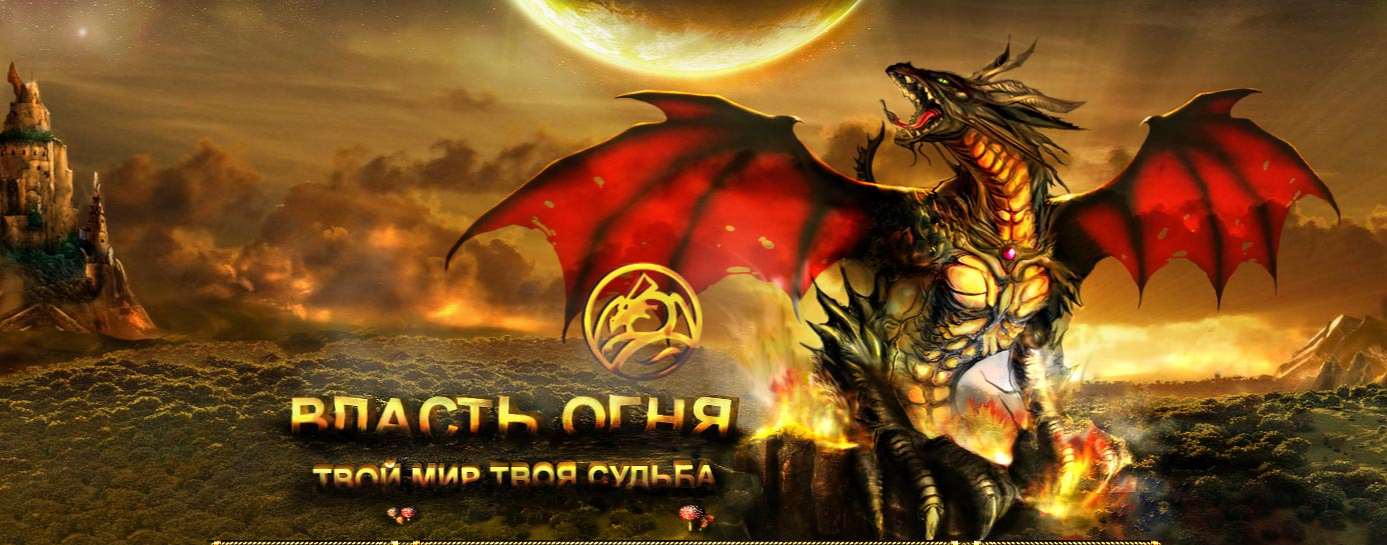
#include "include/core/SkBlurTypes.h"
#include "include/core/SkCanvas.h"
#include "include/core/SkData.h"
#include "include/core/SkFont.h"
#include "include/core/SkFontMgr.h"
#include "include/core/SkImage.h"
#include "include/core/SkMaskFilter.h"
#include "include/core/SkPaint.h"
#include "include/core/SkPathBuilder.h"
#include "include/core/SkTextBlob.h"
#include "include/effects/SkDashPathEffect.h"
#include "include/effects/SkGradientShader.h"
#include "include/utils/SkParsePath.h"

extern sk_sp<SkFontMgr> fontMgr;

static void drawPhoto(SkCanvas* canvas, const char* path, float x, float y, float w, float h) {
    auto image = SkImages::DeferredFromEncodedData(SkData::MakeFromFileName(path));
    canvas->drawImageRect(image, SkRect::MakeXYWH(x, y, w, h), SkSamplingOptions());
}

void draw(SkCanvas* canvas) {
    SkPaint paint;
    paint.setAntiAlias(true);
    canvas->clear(0xFFFFFFFF);
    drawPhoto(canvas, "assets/img1.png", 0, 0, 1387, 545);
    drawPhoto(canvas, "assets/img2.png", 206, 540, 200, 5);
    drawPhoto(canvas, "assets/img3.png", 406, 540, 560, 5);
    drawPhoto(canvas, "assets/img4.png", 966, 540, 200, 5);
}
